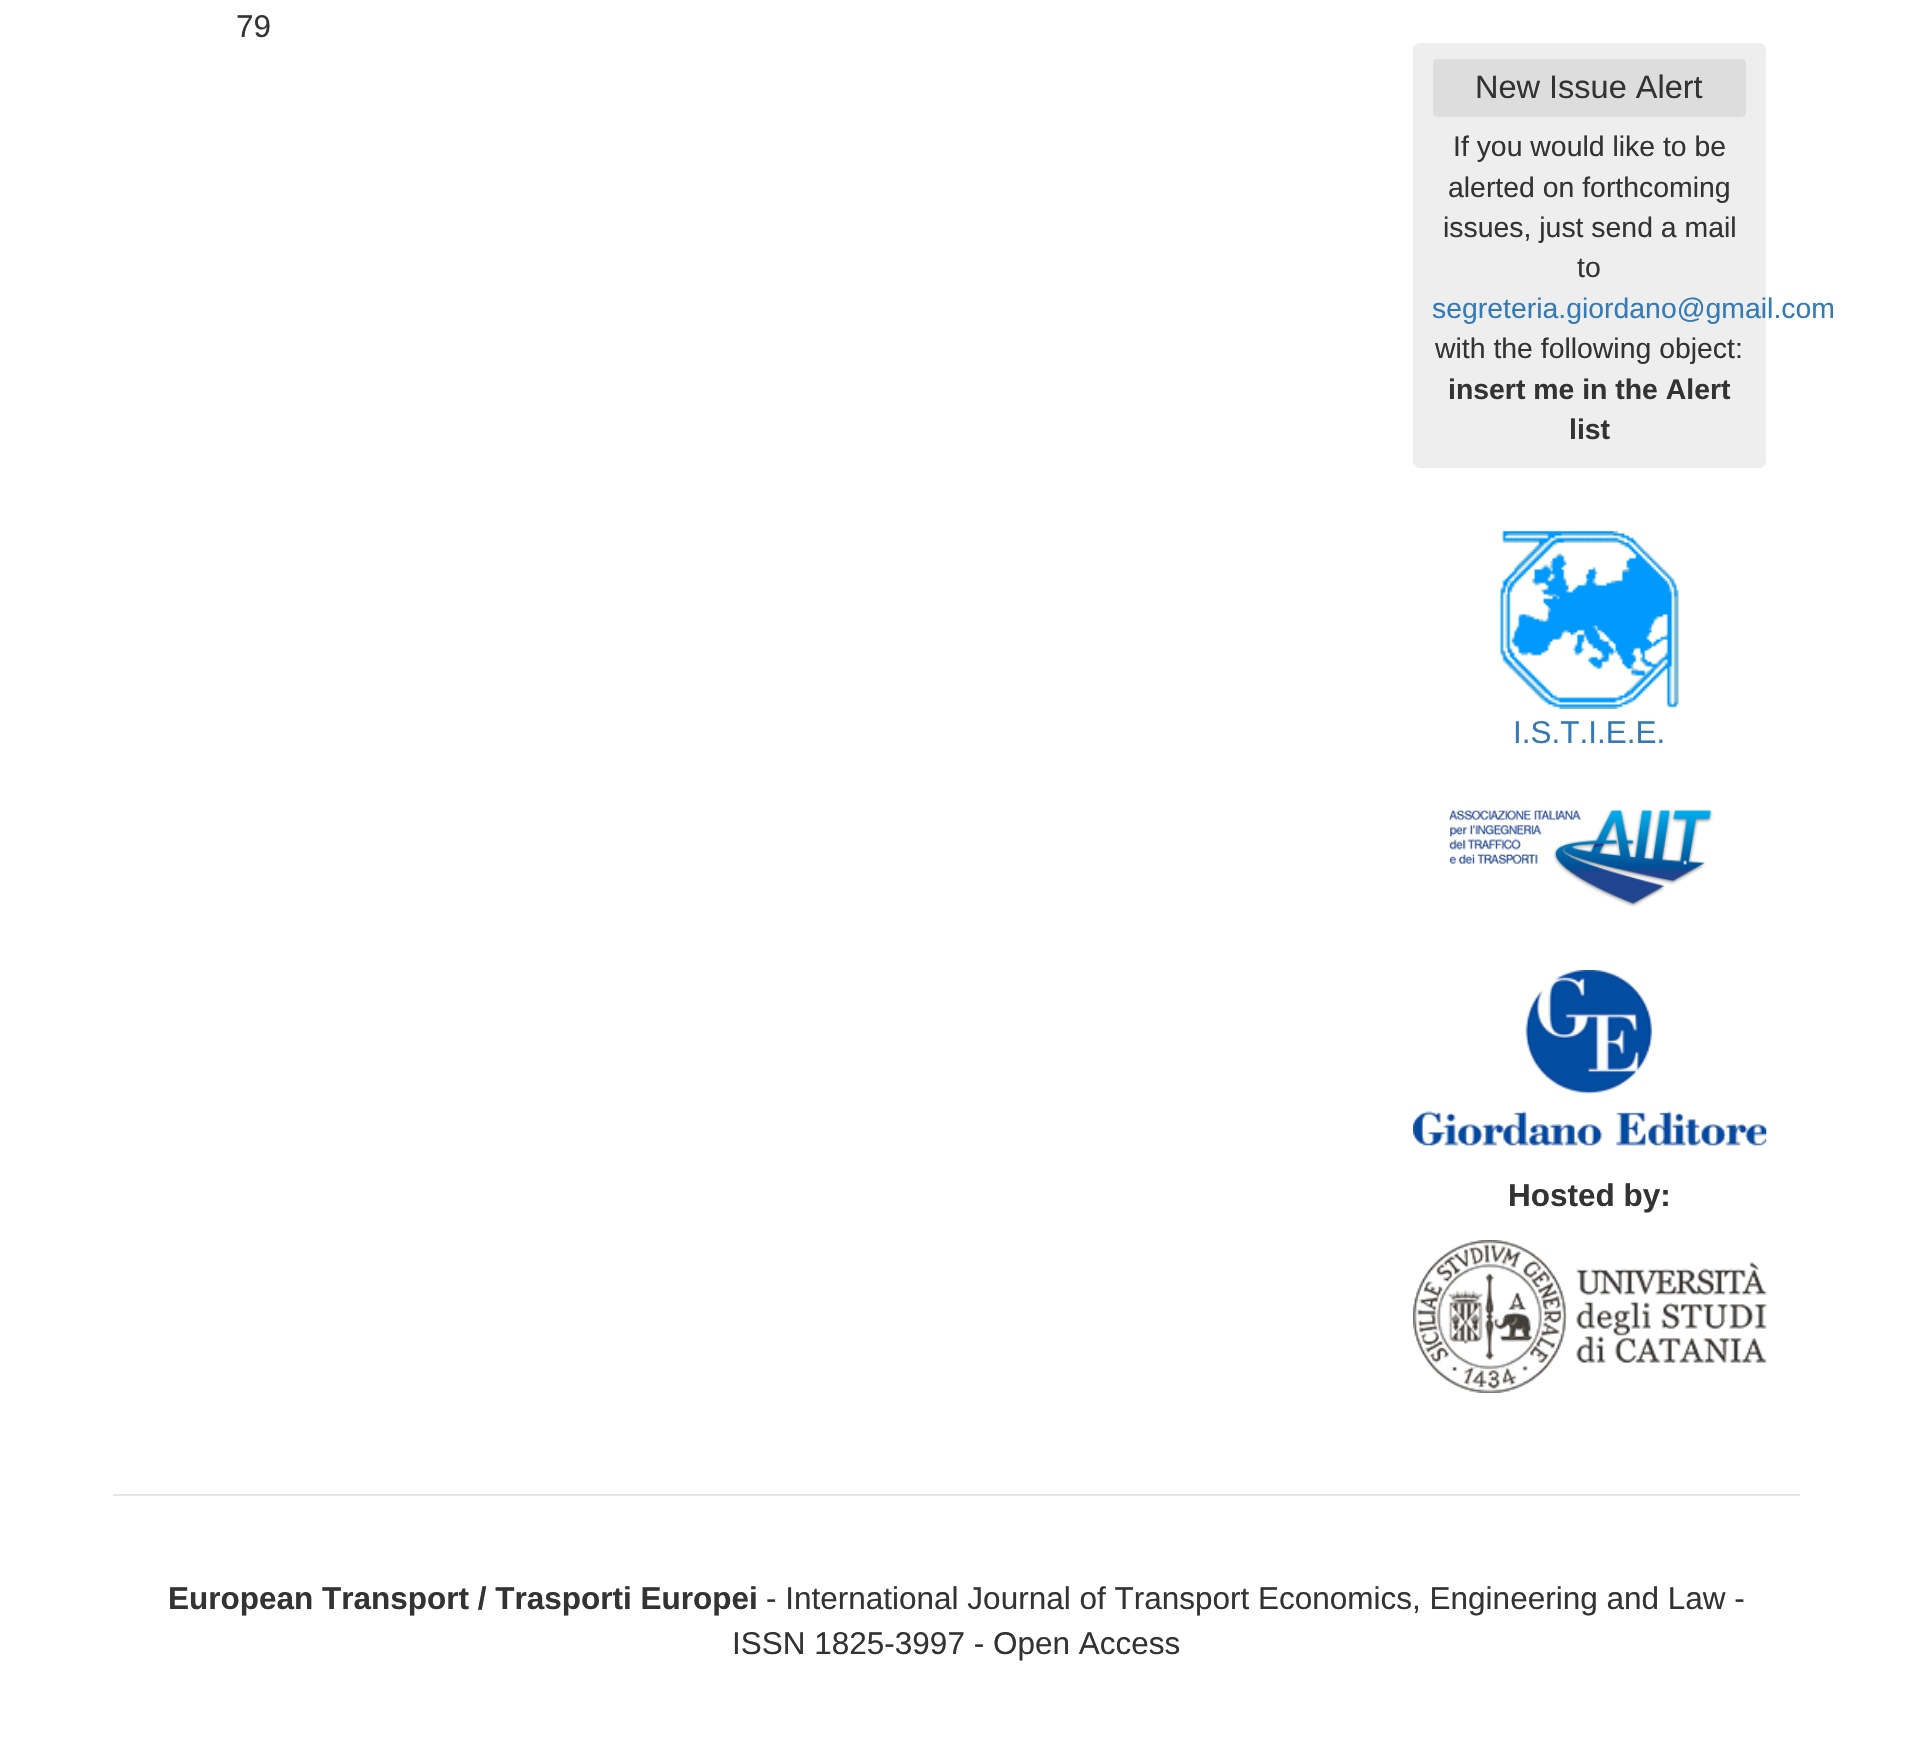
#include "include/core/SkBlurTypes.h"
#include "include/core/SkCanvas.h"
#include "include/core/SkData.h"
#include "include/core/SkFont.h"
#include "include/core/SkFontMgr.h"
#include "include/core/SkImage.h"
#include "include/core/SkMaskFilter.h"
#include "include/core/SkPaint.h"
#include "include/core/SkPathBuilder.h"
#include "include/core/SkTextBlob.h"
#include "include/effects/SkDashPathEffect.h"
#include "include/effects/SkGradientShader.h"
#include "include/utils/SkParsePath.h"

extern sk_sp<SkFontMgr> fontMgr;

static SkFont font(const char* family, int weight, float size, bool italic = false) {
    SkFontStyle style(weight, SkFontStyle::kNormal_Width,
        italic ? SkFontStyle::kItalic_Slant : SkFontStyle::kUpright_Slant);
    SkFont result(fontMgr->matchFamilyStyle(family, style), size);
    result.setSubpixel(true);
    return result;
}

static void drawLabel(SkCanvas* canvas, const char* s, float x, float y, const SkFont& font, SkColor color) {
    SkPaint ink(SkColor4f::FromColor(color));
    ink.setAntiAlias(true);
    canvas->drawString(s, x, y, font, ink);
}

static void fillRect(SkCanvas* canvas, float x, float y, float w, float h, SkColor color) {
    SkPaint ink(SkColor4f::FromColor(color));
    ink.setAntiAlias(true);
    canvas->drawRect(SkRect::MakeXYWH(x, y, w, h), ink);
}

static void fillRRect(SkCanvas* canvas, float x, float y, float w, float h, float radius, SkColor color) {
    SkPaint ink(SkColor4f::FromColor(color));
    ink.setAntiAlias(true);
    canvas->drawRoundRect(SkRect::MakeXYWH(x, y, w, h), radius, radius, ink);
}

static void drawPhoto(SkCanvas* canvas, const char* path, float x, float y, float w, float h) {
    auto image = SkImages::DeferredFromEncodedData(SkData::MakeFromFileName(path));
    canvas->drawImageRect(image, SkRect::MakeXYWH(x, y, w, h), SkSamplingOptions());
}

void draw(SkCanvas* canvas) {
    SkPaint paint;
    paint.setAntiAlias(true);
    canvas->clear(0xFFFFFFFF);
    SkFont font1 = font("Liberation Sans", 400, 31.5f);
    drawLabel(canvas, "79", 236, 37, font1, 0xFF333333);
    fillRRect(canvas, 1413, 43, 353, 425, 7, 0xFFEEEEEE);
    fillRRect(canvas, 1433, 59, 313, 58, 5, 0xFFDDDDDD);
    SkFont font2 = font("Liberation Sans", 400, 32.5f);
    drawLabel(canvas, "New Issue Alert", 1475, 98, font2, 0xFF333333);
    SkFont font3 = font("Liberation Sans", 400, 28.4f);
    drawLabel(canvas, "If you would like to be", 1453, 156, font3, 0xFF333333);
    drawLabel(canvas, "alerted on forthcoming", 1448, 197, font3, 0xFF333333);
    drawLabel(canvas, "issues, just send a mail", 1443, 237, font3, 0xFF333333);
    drawLabel(canvas, "to", 1577, 277, font3, 0xFF333333);
    drawLabel(canvas, "segreteria.giordano@gmail.com", 1432, 318, font3, 0xFF337AB7);
    drawLabel(canvas, "with the following object:", 1435, 358, font3, 0xFF333333);
    SkFont font4 = font("Liberation Sans", 700, 28.4f);
    drawLabel(canvas, "insert me in the Alert", 1448, 399, font4, 0xFF333333);
    drawLabel(canvas, "list", 1569, 439, font4, 0xFF333333);
    drawPhoto(canvas, "assets/img1.png", 1500, 531, 179, 178);
    drawLabel(canvas, "I.S.T.I.E.E.", 1513, 743, font1, 0xFF337AB7);
    drawPhoto(canvas, "assets/img2.png", 1449, 809, 264, 98);
    drawPhoto(canvas, "assets/img3.png", 1413, 970, 354, 176);
    SkFont font5 = font("Liberation Sans", 700, 31.5f);
    drawLabel(canvas, "Hosted by:", 1508, 1206, font5, 0xFF333333);
    drawPhoto(canvas, "assets/img4.png", 1413, 1240, 354, 153);
    fillRect(canvas, 113, 1494, 1687, 2, 0xFFE5E5E5);
    drawLabel(canvas, "European Transport / Trasporti Europei", 168, 1609, font5, 0xFF333333);
    drawLabel(canvas, "- International Journal of Transport Economics, Engineering and Law -", 766, 1609, font1, 0xFF333333);
    drawLabel(canvas, "ISSN 1825-3997 - Open Access", 732, 1654, font1, 0xFF333333);
}
